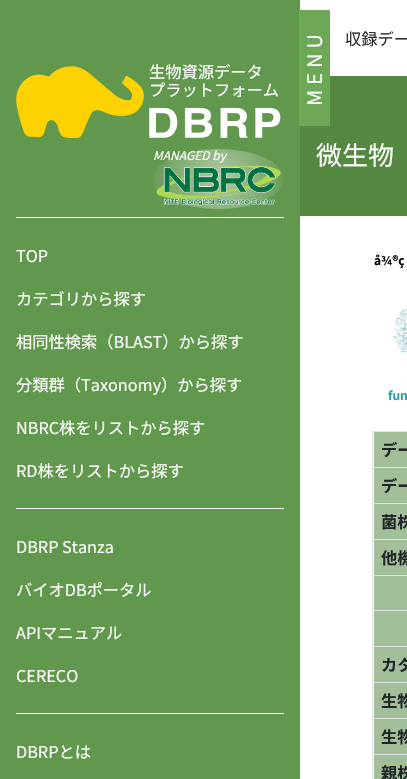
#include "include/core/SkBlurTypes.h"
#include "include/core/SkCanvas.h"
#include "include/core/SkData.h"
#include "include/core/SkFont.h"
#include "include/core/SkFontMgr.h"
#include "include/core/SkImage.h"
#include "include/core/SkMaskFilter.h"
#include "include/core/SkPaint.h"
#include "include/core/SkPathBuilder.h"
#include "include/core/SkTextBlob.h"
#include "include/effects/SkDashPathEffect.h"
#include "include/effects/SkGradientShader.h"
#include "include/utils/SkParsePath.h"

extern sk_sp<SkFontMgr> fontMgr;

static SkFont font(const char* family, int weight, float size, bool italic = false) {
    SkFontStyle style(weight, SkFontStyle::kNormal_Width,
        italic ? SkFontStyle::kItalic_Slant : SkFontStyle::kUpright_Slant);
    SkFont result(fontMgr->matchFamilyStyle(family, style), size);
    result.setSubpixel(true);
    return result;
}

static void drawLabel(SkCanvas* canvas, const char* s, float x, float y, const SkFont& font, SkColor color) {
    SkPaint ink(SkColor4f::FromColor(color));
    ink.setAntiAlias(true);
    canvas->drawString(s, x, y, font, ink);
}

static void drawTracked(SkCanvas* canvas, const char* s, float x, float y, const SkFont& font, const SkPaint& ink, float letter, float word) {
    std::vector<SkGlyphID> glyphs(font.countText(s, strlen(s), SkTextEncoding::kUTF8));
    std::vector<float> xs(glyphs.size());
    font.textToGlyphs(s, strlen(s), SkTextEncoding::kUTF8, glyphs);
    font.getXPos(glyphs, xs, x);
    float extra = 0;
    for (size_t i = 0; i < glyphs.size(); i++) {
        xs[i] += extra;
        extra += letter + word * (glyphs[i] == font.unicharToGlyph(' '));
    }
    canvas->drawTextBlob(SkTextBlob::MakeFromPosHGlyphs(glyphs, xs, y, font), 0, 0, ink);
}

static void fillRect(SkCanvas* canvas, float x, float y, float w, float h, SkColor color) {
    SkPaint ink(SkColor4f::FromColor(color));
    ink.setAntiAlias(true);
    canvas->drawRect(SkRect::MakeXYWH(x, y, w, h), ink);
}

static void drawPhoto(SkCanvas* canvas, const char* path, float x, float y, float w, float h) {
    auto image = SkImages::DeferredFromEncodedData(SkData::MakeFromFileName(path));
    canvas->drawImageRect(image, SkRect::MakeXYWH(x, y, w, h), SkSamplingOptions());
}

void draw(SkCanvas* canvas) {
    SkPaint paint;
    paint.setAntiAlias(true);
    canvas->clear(0xFF62974E);
    drawPhoto(canvas, "assets/img1.png", 16, 66, 265, 72);
    SkFont font1 = font("Noto Sans JP", 400, 16.25f);
    drawLabel(canvas, "生物資源データ", 149, 78, font1, 0xFFFFFFFF);
    drawLabel(canvas, "プラットフォーム", 149, 96, font1, 0xFFFFFFFF);
    {
        const SkColor colors[] = {0xFFB1CBA7, 0xFF62974E};
        const float stops[] = {0, 1};
        paint.setShader(SkGradientShader::MakeRadial({219, 179}, 72, colors, stops, 2, SkTileMode::kClamp));
        paint.setAlpha(255);
    }
    canvas->drawOval(SkRect::MakeXYWH(153, 149, 131, 60), paint);
    SkFont font2 = font("Noto Sans JP", 400, 12, true);
    drawLabel(canvas, "MANAGED by", 153, 160, font2, 0xFFFFFFFF);
    drawPhoto(canvas, "assets/img2.png", 156, 165, 125, 41);
    fillRect(canvas, 16, 217, 268, 1, 0xFFFFFFFF);
    drawLabel(canvas, "TOP", 16, 262, font1, 0xFFFFFFFF);
    drawLabel(canvas, "カテゴリから探す", 16, 305, font1, 0xFFFFFFFF);
    drawLabel(canvas, "相同性検索（BLAST）から探す", 16, 348, font1, 0xFFFFFFFF);
    drawLabel(canvas, "分類群（Taxonomy）から探す", 16, 391, font1, 0xFFFFFFFF);
    drawLabel(canvas, "NBRC株をリストから探す", 16, 434, font1, 0xFFFFFFFF);
    drawLabel(canvas, "RD株をリストから探す", 16, 477, font1, 0xFFFFFFFF);
    fillRect(canvas, 16, 508, 268, 1, 0xFFFFFFFF);
    drawLabel(canvas, "DBRP Stanza", 16, 553, font1, 0xFFFFFFFF);
    drawLabel(canvas, "バイオDBポータル", 16, 596, font1, 0xFFFFFFFF);
    drawLabel(canvas, "APIマニュアル", 16, 639, font1, 0xFFFFFFFF);
    drawLabel(canvas, "CERECO", 16, 682, font1, 0xFFFFFFFF);
    fillRect(canvas, 16, 713, 268, 1, 0xFFFFFFFF);
    drawLabel(canvas, "DBRPとは", 16, 758, font1, 0xFFFFFFFF);
    fillRect(canvas, 300, 0, 107, 779, 0xFFFFFFFF);
    fillRect(canvas, 300, 76, 107, 140, 0xFF558840);
    fillRect(canvas, 299, 10, 31, 116, 0xFF6DA857);
    SkFont font3 = font("Noto Sans JP", 400, 20);
    paint.setShader(nullptr);
    paint.setColor(0xFFFFFFFF);
    canvas->save();
    canvas->rotate(-90, 322, 106);
    drawTracked(canvas, "MENU", 322, 106, font3, paint, 5, 0);
    canvas->restore();
    drawLabel(canvas, "収録デー", 345, 45, font1, 0xFF2C2C2C);
    SkFont font4 = font("Noto Sans JP", 400, 26);
    drawLabel(canvas, "微生物", 316, 165, font4, 0xFFFFFFFF);
    SkFont font5 = font("Noto Sans JP", 700, 12);
    drawLabel(canvas, "å¾®ç", 374, 265, font5, 0xFF000000);
    drawPhoto(canvas, "assets/img3.png", 393, 307, 14, 49);
    SkFont font6 = font("Noto Sans JP", 400, 13);
    drawLabel(canvas, "-", 403, 354, font6, 0xFFFFFFFF);
    drawLabel(canvas, "fun", 388, 400, font5, 0xFF249EB3);
    fillRect(canvas, 372, 431, 35, 1, 0xFFDEE2E6);
    fillRect(canvas, 374, 432, 33, 35, 0xFFA3BF99);
    SkFont font7 = font("Noto Sans JP", 700, 16.25f);
    drawLabel(canvas, "デー", 381, 456, font7, 0xFF212529);
    fillRect(canvas, 372, 467, 35, 1, 0xFFDEE2E6);
    fillRect(canvas, 374, 468, 33, 35, 0xFFA3BF99);
    drawLabel(canvas, "デー", 381, 492, font7, 0xFF212529);
    fillRect(canvas, 372, 503, 35, 1, 0xFFDEE2E6);
    fillRect(canvas, 374, 504, 33, 35, 0xFFA3BF99);
    drawLabel(canvas, "菌株", 381, 528, font7, 0xFF212529);
    fillRect(canvas, 372, 539, 35, 1, 0xFFDEE2E6);
    fillRect(canvas, 374, 540, 33, 106, 0xFFA3BF99);
    drawLabel(canvas, "他機", 381, 564, font7, 0xFF212529);
    fillRect(canvas, 372, 575, 35, 1, 0xFFDEE2E6);
    fillRect(canvas, 372, 610, 35, 1, 0xFFDEE2E6);
    fillRect(canvas, 372, 646, 35, 1, 0xFFDEE2E6);
    fillRect(canvas, 374, 647, 33, 35, 0xFFA3BF99);
    drawLabel(canvas, "カタ", 381, 671, font7, 0xFF212529);
    fillRect(canvas, 372, 682, 35, 1, 0xFFDEE2E6);
    fillRect(canvas, 374, 683, 33, 35, 0xFFA3BF99);
    drawLabel(canvas, "生物", 381, 707, font7, 0xFF212529);
    fillRect(canvas, 372, 718, 35, 1, 0xFFDEE2E6);
    fillRect(canvas, 374, 719, 33, 35, 0xFFA3BF99);
    drawLabel(canvas, "生物", 381, 743, font7, 0xFF212529);
    fillRect(canvas, 372, 754, 35, 1, 0xFFDEE2E6);
    fillRect(canvas, 374, 755, 33, 24, 0xFFA3BF99);
    fillRect(canvas, 372, 431, 1, 348, 0xFFDEE2E6);
    drawLabel(canvas, "親株", 381, 779, font7, 0xFF212529);
}
